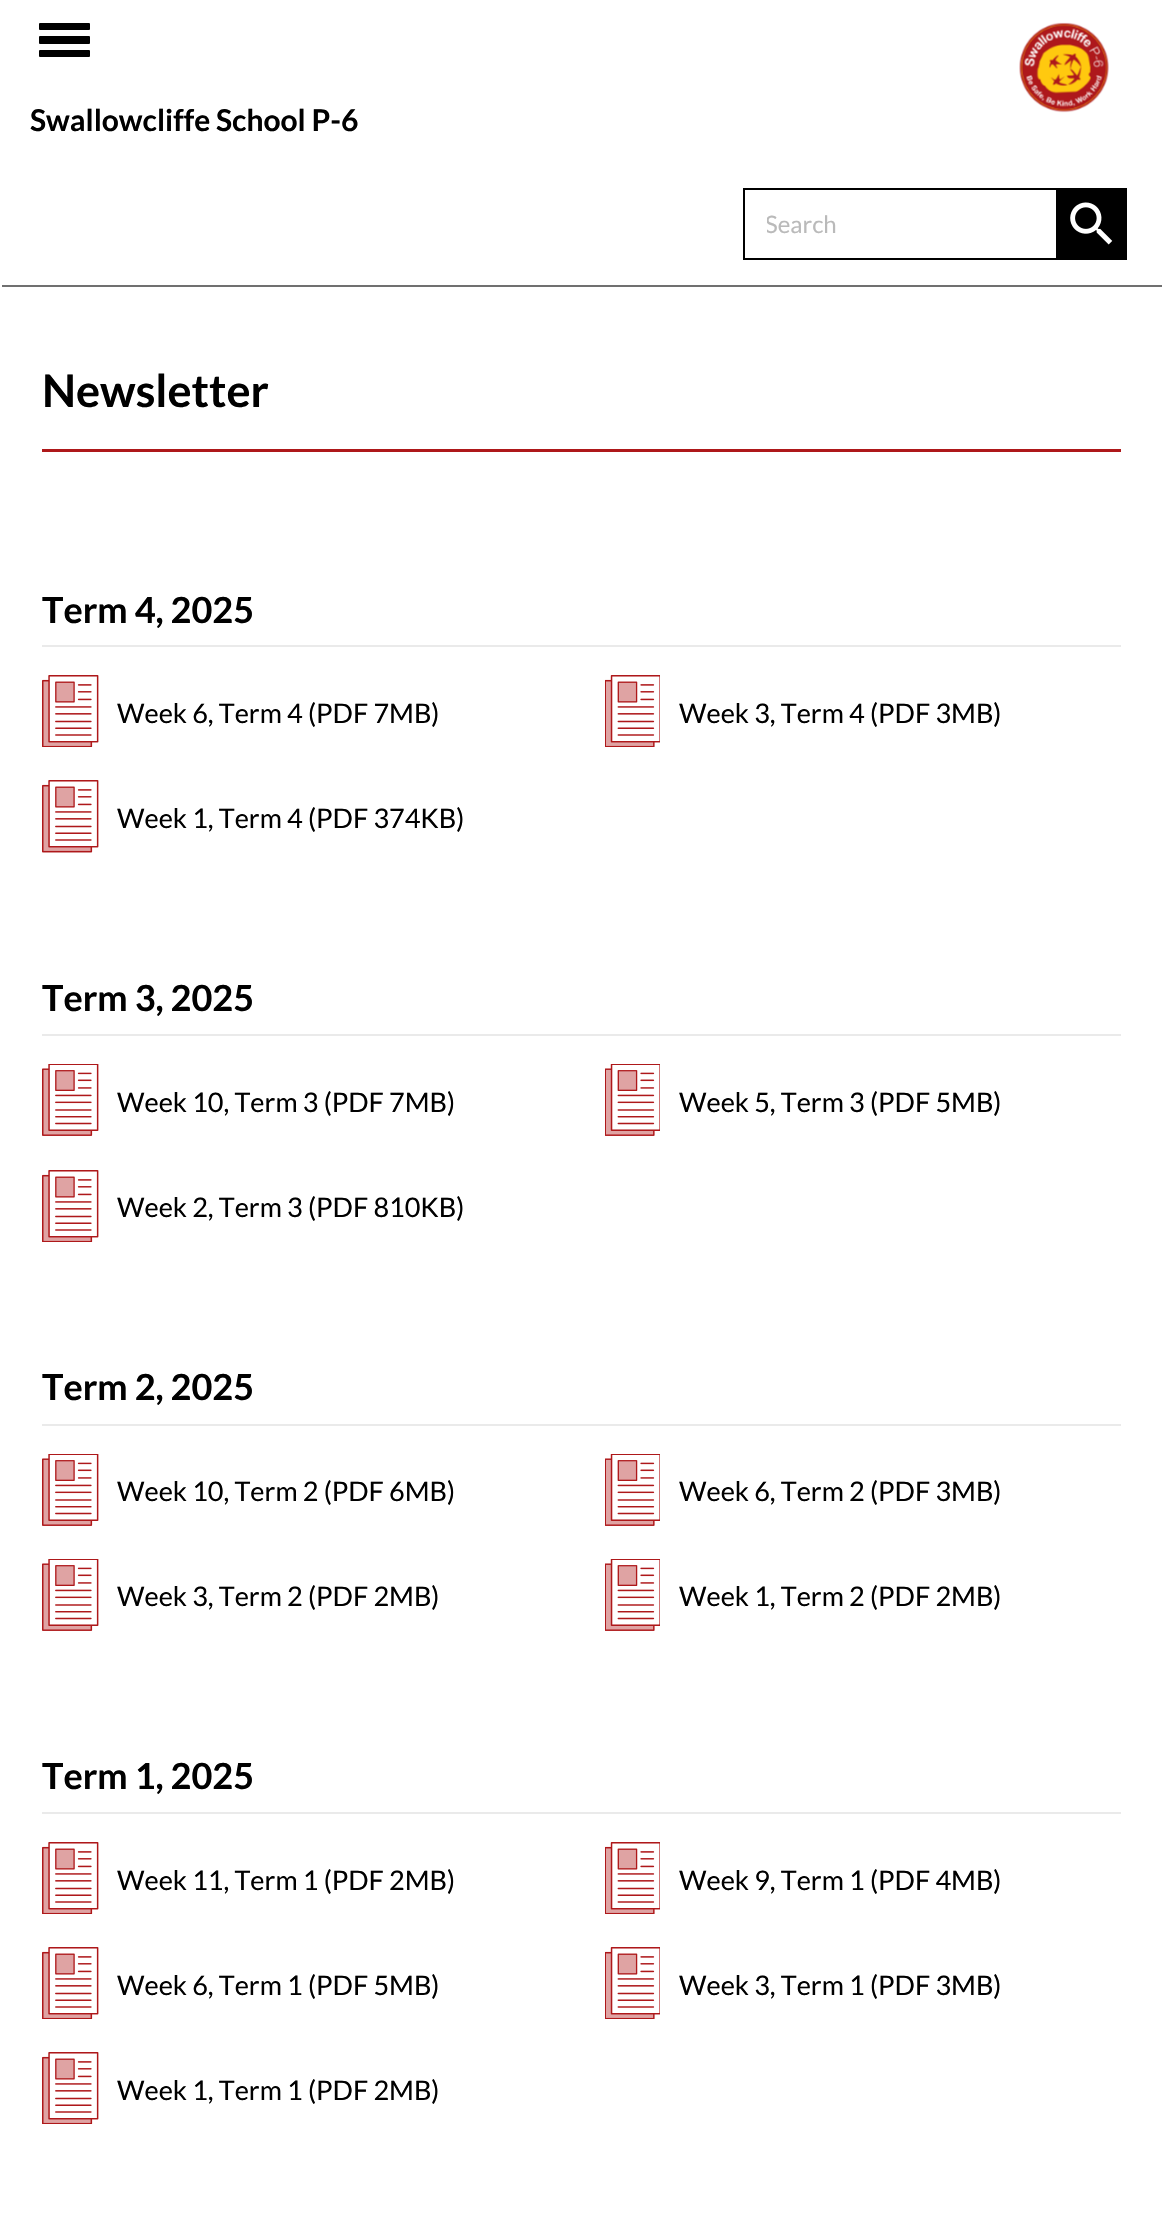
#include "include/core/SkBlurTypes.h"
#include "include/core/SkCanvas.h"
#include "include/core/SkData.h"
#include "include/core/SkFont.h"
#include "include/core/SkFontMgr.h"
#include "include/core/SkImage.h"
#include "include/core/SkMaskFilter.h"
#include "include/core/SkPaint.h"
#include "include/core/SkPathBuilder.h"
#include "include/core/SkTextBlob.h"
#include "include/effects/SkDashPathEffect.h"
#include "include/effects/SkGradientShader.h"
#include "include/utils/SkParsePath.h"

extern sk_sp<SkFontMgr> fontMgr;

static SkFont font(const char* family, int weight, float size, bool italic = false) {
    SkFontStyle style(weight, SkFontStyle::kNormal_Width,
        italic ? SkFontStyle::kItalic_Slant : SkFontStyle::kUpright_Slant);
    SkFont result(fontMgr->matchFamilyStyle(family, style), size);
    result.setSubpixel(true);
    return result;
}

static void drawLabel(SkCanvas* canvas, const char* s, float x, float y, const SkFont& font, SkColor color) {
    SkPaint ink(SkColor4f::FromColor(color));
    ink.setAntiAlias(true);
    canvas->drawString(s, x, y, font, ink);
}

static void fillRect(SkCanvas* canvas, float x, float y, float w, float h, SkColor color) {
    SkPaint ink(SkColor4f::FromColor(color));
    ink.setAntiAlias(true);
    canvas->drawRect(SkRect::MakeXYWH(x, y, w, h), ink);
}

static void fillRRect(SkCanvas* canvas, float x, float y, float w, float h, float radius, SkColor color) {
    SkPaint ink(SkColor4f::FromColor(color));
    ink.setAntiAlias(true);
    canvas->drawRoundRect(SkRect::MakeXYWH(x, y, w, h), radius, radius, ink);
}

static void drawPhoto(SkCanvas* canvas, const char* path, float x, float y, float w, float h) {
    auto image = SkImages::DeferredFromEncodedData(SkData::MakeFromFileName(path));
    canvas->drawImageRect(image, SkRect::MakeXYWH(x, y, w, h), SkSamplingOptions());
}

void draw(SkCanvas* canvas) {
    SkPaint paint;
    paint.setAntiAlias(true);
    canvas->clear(0xFFFFFFFF);
    fillRect(canvas, 2, 285, 1160, 2, 0xFF707070);
    fillRRect(canvas, 39, 23, 51, 7, 1, 0xFF000000);
    fillRRect(canvas, 39, 36, 51, 8, 1, 0xFF000000);
    fillRRect(canvas, 39, 50, 51, 7, 1, 0xFF000000);
    drawPhoto(canvas, "assets/img1.png", 1019, 22, 90, 91);
    SkFont font1 = font("Lato", 700, 30);
    drawLabel(canvas, "Swallowcliffe School P-6", 30, 131, font1, 0xFF000000);
    paint.setStroke(true);
    paint.setStrokeWidth(2);
    paint.setColor(0xFF000000);
    canvas->drawRect(SkRect::MakeXYWH(744, 189, 313, 70), paint);
    canvas->save();
    canvas->clipRect(SkRect::MakeXYWH(767, 209, 267, 28));
    SkFont font2 = font("Lato", 400, 24);
    drawLabel(canvas, "Search", 765, 233, font2, 0xFFBABABA);
    canvas->restore();
    fillRect(canvas, 1058, 188, 69, 72, 0xFF000000);
    drawPhoto(canvas, "assets/img2.png", 1070, 202, 43, 43);
    fillRect(canvas, 42, 449, 1079, 3, 0xFFAE181A);
    SkFont font3 = font("Lato", 700, 45);
    drawLabel(canvas, "Newsletter", 42, 407, font3, 0xFF000000);
    fillRect(canvas, 42, 645, 1079, 2, 0xFFEAEAEA);
    SkFont font4 = font("Lato", 700, 36);
    drawLabel(canvas, "Term 4, 2025", 42, 623, font4, 0xFF000000);
    drawPhoto(canvas, "assets/img3.png", 42, 675, 57, 72);
    SkFont font5 = font("Lato", 400, 27);
    drawLabel(canvas, "Week 6, Term 4 (PDF 7MB)", 117, 723, font5, 0xFF000000);
    drawPhoto(canvas, "assets/img4.png", 605, 675, 55, 72);
    drawLabel(canvas, "Week 3, Term 4 (PDF 3MB)", 679, 723, font5, 0xFF000000);
    drawPhoto(canvas, "assets/img5.png", 42, 780, 57, 73);
    drawLabel(canvas, "Week 1, Term 4 (PDF 374KB)", 117, 828, font5, 0xFF000000);
    fillRect(canvas, 42, 1034, 1079, 2, 0xFFEAEAEA);
    drawLabel(canvas, "Term 3, 2025", 42, 1011, font4, 0xFF000000);
    drawPhoto(canvas, "assets/img6.png", 42, 1064, 57, 72);
    drawLabel(canvas, "Week 10, Term 3 (PDF 7MB)", 117, 1112, font5, 0xFF000000);
    drawPhoto(canvas, "assets/img7.png", 605, 1064, 55, 72);
    drawLabel(canvas, "Week 5, Term 3 (PDF 5MB)", 679, 1112, font5, 0xFF000000);
    drawPhoto(canvas, "assets/img3.png", 42, 1170, 57, 72);
    drawLabel(canvas, "Week 2, Term 3 (PDF 810KB)", 117, 1217, font5, 0xFF000000);
    fillRect(canvas, 42, 1424, 1079, 2, 0xFFEAEAEA);
    drawLabel(canvas, "Term 2, 2025", 42, 1400, font4, 0xFF000000);
    drawPhoto(canvas, "assets/img6.png", 42, 1454, 57, 72);
    drawLabel(canvas, "Week 10, Term 2 (PDF 6MB)", 117, 1501, font5, 0xFF000000);
    drawPhoto(canvas, "assets/img7.png", 605, 1454, 55, 72);
    drawLabel(canvas, "Week 6, Term 2 (PDF 3MB)", 679, 1501, font5, 0xFF000000);
    drawPhoto(canvas, "assets/img6.png", 42, 1559, 57, 72);
    drawLabel(canvas, "Week 3, Term 2 (PDF 2MB)", 117, 1606, font5, 0xFF000000);
    drawPhoto(canvas, "assets/img7.png", 605, 1559, 55, 72);
    drawLabel(canvas, "Week 1, Term 2 (PDF 2MB)", 679, 1606, font5, 0xFF000000);
    fillRect(canvas, 42, 1812, 1079, 2, 0xFFEAEAEA);
    drawLabel(canvas, "Term 1, 2025", 42, 1789, font4, 0xFF000000);
    drawPhoto(canvas, "assets/img3.png", 42, 1842, 57, 72);
    drawLabel(canvas, "Week 11, Term 1 (PDF 2MB)", 117, 1890, font5, 0xFF000000);
    drawPhoto(canvas, "assets/img4.png", 605, 1842, 55, 72);
    drawLabel(canvas, "Week 9, Term 1 (PDF 4MB)", 679, 1890, font5, 0xFF000000);
    drawPhoto(canvas, "assets/img3.png", 42, 1947, 57, 72);
    drawLabel(canvas, "Week 6, Term 1 (PDF 5MB)", 117, 1995, font5, 0xFF000000);
    drawPhoto(canvas, "assets/img4.png", 605, 1947, 55, 72);
    drawLabel(canvas, "Week 3, Term 1 (PDF 3MB)", 679, 1995, font5, 0xFF000000);
    drawPhoto(canvas, "assets/img3.png", 42, 2052, 57, 72);
    drawLabel(canvas, "Week 1, Term 1 (PDF 2MB)", 117, 2100, font5, 0xFF000000);
}
